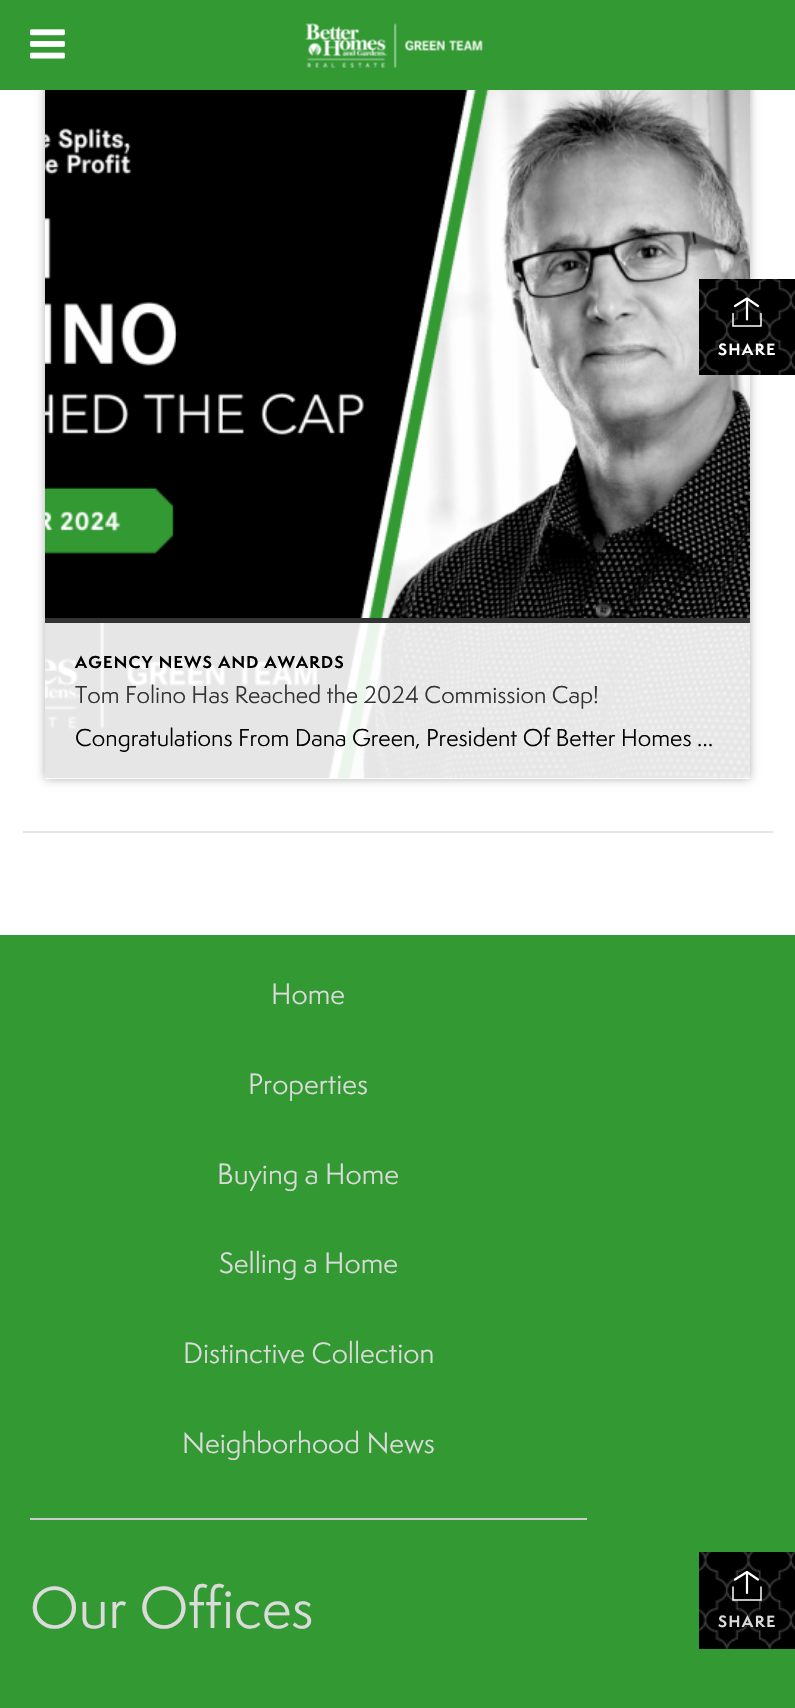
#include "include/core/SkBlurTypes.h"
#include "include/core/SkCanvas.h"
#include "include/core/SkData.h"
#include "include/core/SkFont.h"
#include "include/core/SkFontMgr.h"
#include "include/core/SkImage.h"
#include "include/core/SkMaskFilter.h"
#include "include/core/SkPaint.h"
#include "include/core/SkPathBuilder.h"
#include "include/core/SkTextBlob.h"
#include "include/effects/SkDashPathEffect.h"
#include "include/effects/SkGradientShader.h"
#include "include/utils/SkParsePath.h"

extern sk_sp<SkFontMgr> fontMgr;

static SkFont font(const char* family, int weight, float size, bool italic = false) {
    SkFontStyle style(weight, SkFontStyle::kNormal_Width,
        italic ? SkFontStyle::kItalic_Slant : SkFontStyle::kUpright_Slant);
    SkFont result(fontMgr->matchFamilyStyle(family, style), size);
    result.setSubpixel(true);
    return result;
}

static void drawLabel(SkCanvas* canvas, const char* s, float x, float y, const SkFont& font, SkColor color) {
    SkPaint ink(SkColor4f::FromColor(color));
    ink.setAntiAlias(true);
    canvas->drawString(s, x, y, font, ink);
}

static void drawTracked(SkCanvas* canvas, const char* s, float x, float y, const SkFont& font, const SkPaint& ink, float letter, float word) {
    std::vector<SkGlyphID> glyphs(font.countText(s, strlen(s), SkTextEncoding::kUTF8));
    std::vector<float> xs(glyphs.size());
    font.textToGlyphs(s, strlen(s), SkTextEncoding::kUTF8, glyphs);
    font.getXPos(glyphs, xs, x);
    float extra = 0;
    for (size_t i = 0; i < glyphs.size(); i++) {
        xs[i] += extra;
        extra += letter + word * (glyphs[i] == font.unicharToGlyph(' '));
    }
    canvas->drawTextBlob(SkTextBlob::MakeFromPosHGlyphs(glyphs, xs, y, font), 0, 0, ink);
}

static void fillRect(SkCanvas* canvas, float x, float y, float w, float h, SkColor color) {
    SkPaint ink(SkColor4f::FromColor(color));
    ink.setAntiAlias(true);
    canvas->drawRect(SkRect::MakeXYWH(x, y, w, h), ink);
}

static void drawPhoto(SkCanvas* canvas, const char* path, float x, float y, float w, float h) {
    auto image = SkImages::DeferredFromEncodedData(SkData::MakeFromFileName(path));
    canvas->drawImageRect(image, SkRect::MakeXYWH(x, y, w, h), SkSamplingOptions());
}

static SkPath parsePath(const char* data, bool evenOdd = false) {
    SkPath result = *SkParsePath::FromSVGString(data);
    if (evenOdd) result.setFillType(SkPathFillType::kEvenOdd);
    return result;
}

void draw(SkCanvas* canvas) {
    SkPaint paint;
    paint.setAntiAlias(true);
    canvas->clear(0xFFFFFFFF);
    paint.setColor(0x4D000000);
    paint.setMaskFilter(SkMaskFilter::MakeBlur(kNormal_SkBlurStyle, 4.5f));
    canvas->drawRect(SkRect::MakeXYWH(45, 74, 705, 705), paint);
    paint.setMaskFilter(nullptr);
    fillRect(canvas, 0, 0, 795, 90, 0xFF339933);
    drawPhoto(canvas, "assets/img1.png", 30, 29, 35, 30);
    drawPhoto(canvas, "assets/img2.png", 305, 23, 178, 45);
    drawPhoto(canvas, "assets/img4.png", 45, 90, 705, 688);
    drawPhoto(canvas, "assets/img3.png", 699, 279, 96, 96);
    paint.setStroke(true);
    paint.setStrokeWidth(1.5f);
    paint.setStrokeCap(SkPaint::kRound_Cap);
    paint.setColor(0xFFFFFFFF);
    canvas->drawPath(parsePath("M733 313.5V326H761V313.5"), paint);
    paint.setStrokeWidth(2.2f);
    canvas->drawPath(parsePath("M747 319.5V299"), paint);
    paint.setStrokeJoin(SkPaint::kRound_Join);
    canvas->drawPath(parsePath("M735 306L747 298.5L758 306"), paint);
    SkFont font1 = font("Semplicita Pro", 700, 15);
    paint.setStroke(false);
    drawTracked(canvas, "SHARE", 718, 355, font1, paint, 1.5f, 0);
    fillRect(canvas, 23, 831, 750, 2, 0xFFE4E4E4);
    fillRect(canvas, 45, 623, 705, 156, 0xE6FFFFFF);
    fillRect(canvas, 45, 618, 705, 5, 0xFF333333);
    SkFont font2 = font("Semplicita Pro", 700, 15.75f);
    paint.setColor(0xFF000000);
    drawTracked(canvas, "AGENCY NEWS AND AWARDS", 75, 668, font2, paint, 1.25f, 0);
    SkFont font3 = font("Semplicita Pro", 400, 22.5f);
    drawLabel(canvas, "Tom Folino Has Reached the 2024 Commission Cap!", 75, 703, font3, 0xFF333333);
    drawLabel(canvas, "Congratulations From Dana Green, President Of Better Homes …", 75, 746, font3, 0xFF000000);
    fillRect(canvas, 0, 935, 795, 773, 0xFF339933);
    SkFont font4 = font("Semplicita Pro", 400, 27);
    drawLabel(canvas, "Home", 271, 1004, font4, 0xFFDBDBDB);
    drawLabel(canvas, "Properties", 248, 1094, font4, 0xFFDBDBDB);
    drawLabel(canvas, "Buying a Home", 217, 1184, font4, 0xFFDBDBDB);
    drawLabel(canvas, "Selling a Home", 219, 1273, font4, 0xFFDBDBDB);
    drawLabel(canvas, "Distinctive Collection", 183, 1363, font4, 0xFFDBDBDB);
    drawLabel(canvas, "Neighborhood News", 182, 1453, font4, 0xFFDBDBDB);
    fillRect(canvas, 30, 1518, 557, 2, 0xFFCCCCCC);
    SkFont font5 = font("Semplicita Pro", 400, 54);
    drawLabel(canvas, "Our Offices", 30, 1628, font5, 0xFFDBDBDB);
    drawPhoto(canvas, "assets/img5.png", 699, 1552, 96, 97);
    paint.setStroke(true);
    paint.setStrokeWidth(1.5f);
    paint.setStrokeJoin(SkPaint::kMiter_Join);
    paint.setColor(0xFFFFFFFF);
    canvas->drawPath(parsePath("M733 1587V1600H761V1587"), paint);
    paint.setStrokeWidth(2.2f);
    canvas->drawPath(parsePath("M747 1593V1573"), paint);
    paint.setStrokeJoin(SkPaint::kRound_Join);
    canvas->drawPath(parsePath("M735 1579.5L747 1572L758 1579.5"), paint);
    paint.setStroke(false);
    paint.setColor(0xFFDBDBDB);
    drawTracked(canvas, "SHARE", 718, 1627, font1, paint, 1.5f, 0);
}
